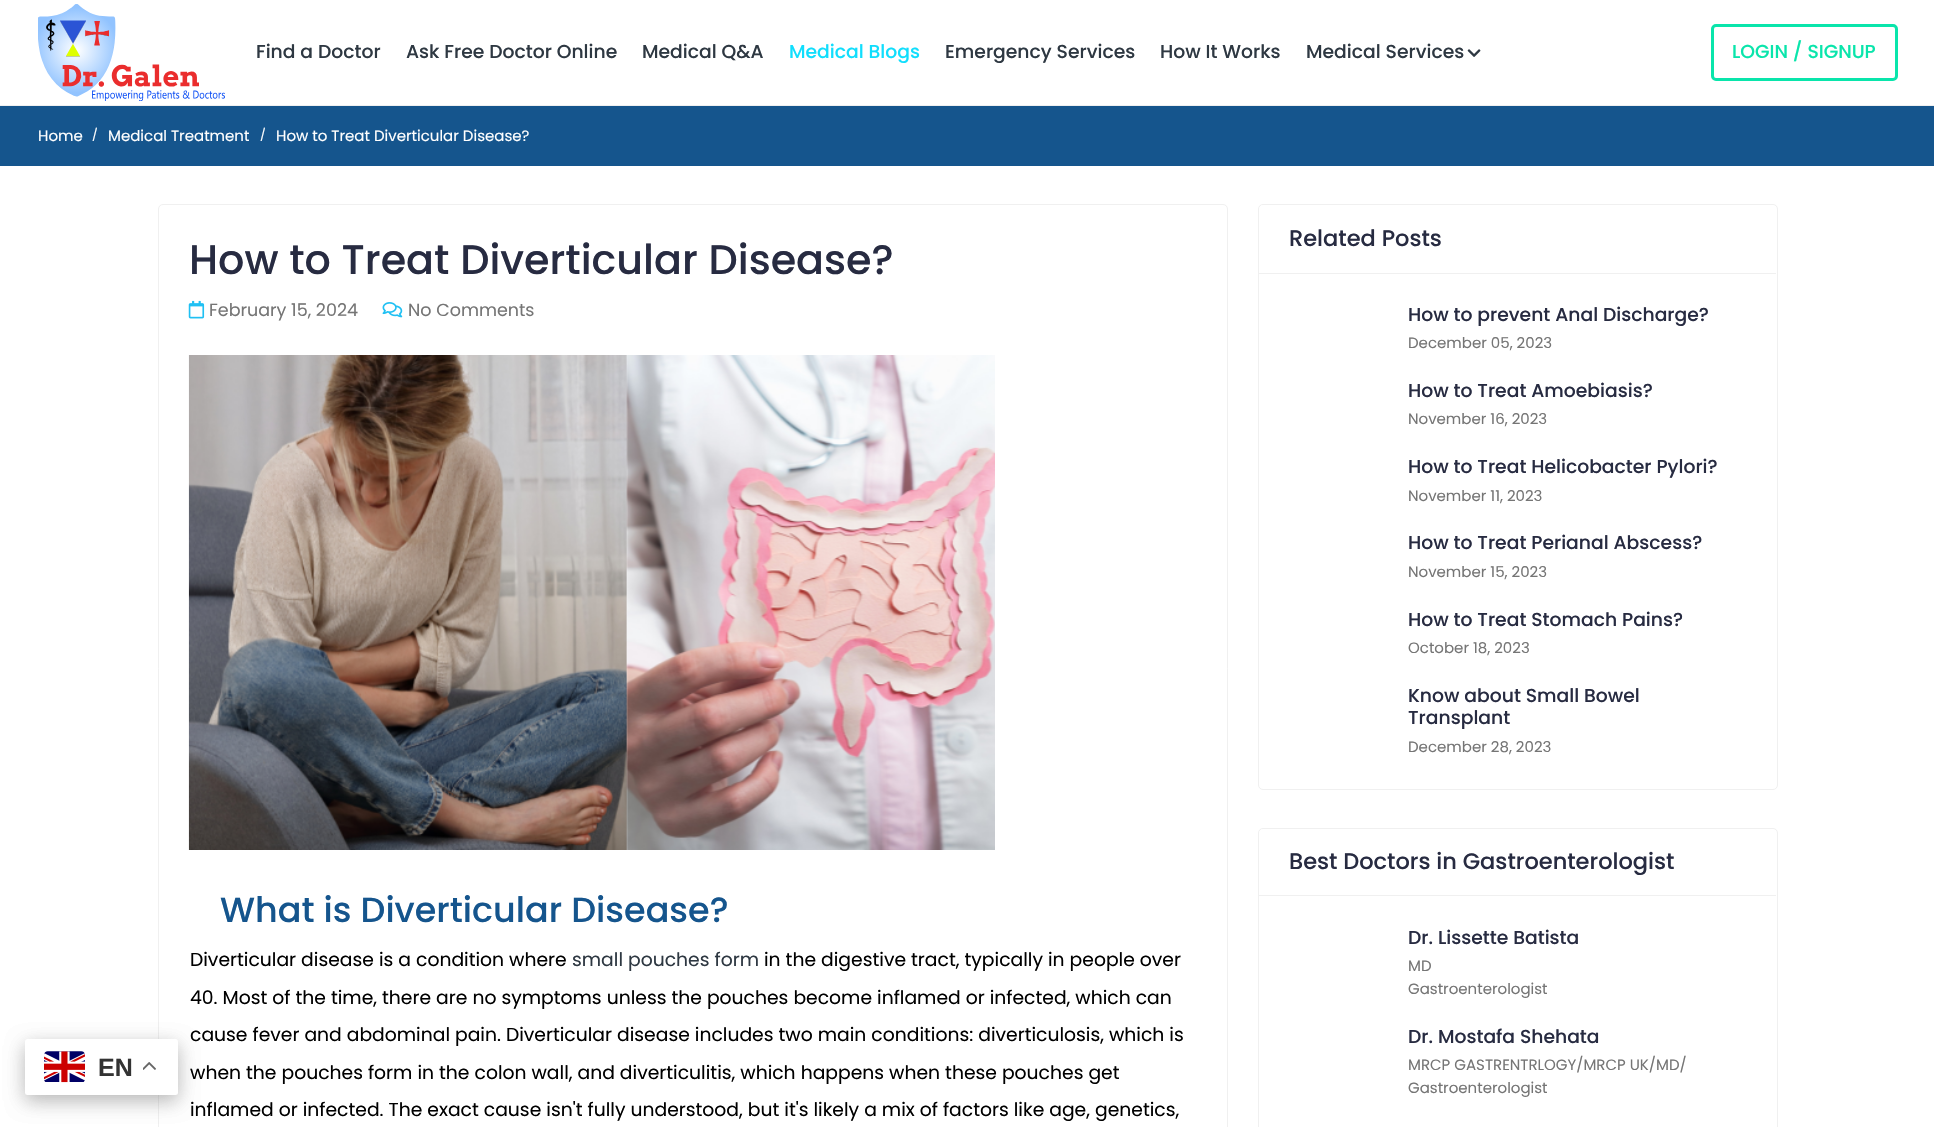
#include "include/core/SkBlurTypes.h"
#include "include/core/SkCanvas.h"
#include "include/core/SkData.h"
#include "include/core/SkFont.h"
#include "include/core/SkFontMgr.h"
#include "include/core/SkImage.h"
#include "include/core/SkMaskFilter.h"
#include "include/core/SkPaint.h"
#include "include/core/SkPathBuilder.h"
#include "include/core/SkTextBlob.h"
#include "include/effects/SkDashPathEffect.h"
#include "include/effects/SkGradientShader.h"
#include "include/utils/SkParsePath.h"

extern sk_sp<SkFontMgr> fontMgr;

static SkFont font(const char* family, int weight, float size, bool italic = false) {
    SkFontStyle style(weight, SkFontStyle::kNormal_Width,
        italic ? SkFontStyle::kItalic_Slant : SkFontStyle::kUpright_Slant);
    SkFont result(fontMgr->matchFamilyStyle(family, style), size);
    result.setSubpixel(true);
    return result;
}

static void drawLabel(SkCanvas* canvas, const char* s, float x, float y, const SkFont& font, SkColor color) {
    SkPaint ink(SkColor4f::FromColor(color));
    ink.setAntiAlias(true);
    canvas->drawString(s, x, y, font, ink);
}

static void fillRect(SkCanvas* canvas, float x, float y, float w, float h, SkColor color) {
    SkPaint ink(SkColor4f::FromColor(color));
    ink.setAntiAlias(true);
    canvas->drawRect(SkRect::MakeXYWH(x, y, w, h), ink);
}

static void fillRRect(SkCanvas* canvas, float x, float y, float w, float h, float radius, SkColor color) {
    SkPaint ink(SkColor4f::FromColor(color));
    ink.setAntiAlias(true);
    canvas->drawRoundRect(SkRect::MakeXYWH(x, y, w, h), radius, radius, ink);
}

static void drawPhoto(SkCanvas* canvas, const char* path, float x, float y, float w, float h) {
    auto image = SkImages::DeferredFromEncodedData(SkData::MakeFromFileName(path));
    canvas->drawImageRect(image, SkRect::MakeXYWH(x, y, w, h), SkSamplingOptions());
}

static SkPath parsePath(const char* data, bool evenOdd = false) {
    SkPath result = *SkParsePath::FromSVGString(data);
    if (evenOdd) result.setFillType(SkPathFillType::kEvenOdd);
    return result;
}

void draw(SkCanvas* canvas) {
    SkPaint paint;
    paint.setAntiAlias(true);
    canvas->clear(0xFFFFFFFF);
    fillRect(canvas, 0, 105, 1934, 1, 0xFFF0F0F0);
    drawPhoto(canvas, "assets/img1.png", 38, 4, 187, 97);
    SkFont font1 = font("Poppins", 500, 18.75f);
    drawLabel(canvas, "Find a Doctor", 256, 58, font1, 0xFF2E3842);
    drawLabel(canvas, "Ask Free Doctor Online", 406, 58, font1, 0xFF2E3842);
    drawLabel(canvas, "Medical Q&A", 642, 58, font1, 0xFF2E3842);
    drawLabel(canvas, "Medical Blogs", 789, 58, font1, 0xFF10DEFD);
    drawLabel(canvas, "Emergency Services", 945, 58, font1, 0xFF2E3842);
    drawLabel(canvas, "How It Works", 1160, 58, font1, 0xFF2E3842);
    drawLabel(canvas, "Medical Services", 1306, 58, font1, 0xFF2E3842);
    drawPhoto(canvas, "assets/img2.png", 1467, 49, 14, 8);
    paint.setStroke(true);
    paint.setStrokeWidth(3);
    paint.setColor(0xFF09E5AB);
    canvas->drawRoundRect(SkRect::MakeXYWH(1712.5f, 25.5f, 184, 54), 3.5f, 3.5f, paint);
    drawLabel(canvas, "LOGIN / SIGNUP", 1732, 58, font1, 0xFF09E5AB);
    fillRect(canvas, 0, 106, 1934, 60, 0xFF15558D);
    SkFont font2 = font("Poppins", 400, 15);
    drawLabel(canvas, "Home", 38, 141, font2, 0xFFFFFFFF);
    SkFont font3 = font("Poppins", 400, 12);
    drawLabel(canvas, "/", 92, 139, font3, 0xFFFFFFFF);
    drawLabel(canvas, "Medical Treatment", 108, 141, font2, 0xFFFFFFFF);
    drawLabel(canvas, "/", 260, 139, font3, 0xFFFFFFFF);
    drawLabel(canvas, "How to Treat Diverticular Disease?", 276, 141, font2, 0xFFFFFFFF);
    paint.setStrokeWidth(1);
    paint.setColor(0xFFF0F0F0);
    canvas->drawRoundRect(SkRect::MakeXYWH(158.5f, 204.5f, 1069, 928), 4.5f, 4.5f, paint);
    SkFont font4 = font("Poppins", 500, 41.25f);
    drawLabel(canvas, "How to Treat Diverticular Disease?", 189, 274, font4, 0xFF272B41);
    drawPhoto(canvas, "assets/img3.png", 188, 300, 17, 19);
    SkFont font5 = font("Poppins", 400, 17.5f);
    drawLabel(canvas, "February 15, 2024", 209, 316, font5, 0xFF757575);
    drawPhoto(canvas, "assets/img4.png", 382, 302, 21, 16);
    drawLabel(canvas, "No Comments", 408, 316, font5, 0xFF757575);
    drawPhoto(canvas, "assets/img5.png", 188, 355, 807, 495);
    SkFont font6 = font("Poppins", 500, 35);
    drawLabel(canvas, "What is Diverticular Disease?", 220, 922, font6, 0xFF15558D);
    SkFont font7 = font("Poppins", 400, 18.75f);
    drawLabel(canvas, "Diverticular disease is a condition where", 190, 966, font7, 0xFF000000);
    drawLabel(canvas, "small pouches form", 572, 966, font7, 0xFF2E3842);
    drawLabel(canvas, "in the digestive tract, typically in people over", 764, 966, font7, 0xFF000000);
    drawLabel(canvas, "40. Most of the time, there are no symptoms unless the pouches become inflamed or infected, which can", 190, 1004, font7, 0xFF000000);
    drawLabel(canvas, "cause fever and abdominal pain. Diverticular disease includes two main conditions: diverticulosis, which is", 190, 1041, font7, 0xFF000000);
    drawLabel(canvas, "when the pouches form in the colon wall, and diverticulitis, which happens when these pouches get", 190, 1079, font7, 0xFF000000);
    drawLabel(canvas, "inflamed or infected. The exact cause isn't fully understood, but it's likely a mix of factors like age, genetics,", 190, 1116, font7, 0xFF000000);
    canvas->drawRoundRect(SkRect::MakeXYWH(1258.5f, 204.5f, 519, 585), 4.5f, 4.5f, paint);
    paint.setStroke(false);
    paint.setColor(0xFFFFFFFF);
    canvas->drawPath(parsePath("M1263 205H1772C1774 205 1776 207 1776 209V274H1259V209C1259 207 1261 205 1263 205Z"), paint);
    fillRect(canvas, 1259, 273, 517, 1, 0xFFF0F0F0);
    SkFont font8 = font("Poppins", 500, 22.5f);
    drawLabel(canvas, "Related Posts", 1289, 246, font8, 0xFF272B41);
    drawLabel(canvas, "How to prevent Anal Discharge?", 1408, 321, font1, 0xFF272B41);
    drawLabel(canvas, "December 05, 2023", 1408, 348, font2, 0xFF757575);
    drawLabel(canvas, "How to Treat Amoebiasis?", 1408, 397, font1, 0xFF272B41);
    drawLabel(canvas, "November 16, 2023", 1408, 424, font2, 0xFF757575);
    drawLabel(canvas, "How to Treat Helicobacter Pylori?", 1408, 473, font1, 0xFF272B41);
    drawLabel(canvas, "November 11, 2023", 1408, 501, font2, 0xFF757575);
    drawLabel(canvas, "How to Treat Perianal Abscess?", 1408, 549, font1, 0xFF272B41);
    drawLabel(canvas, "November 15, 2023", 1408, 577, font2, 0xFF757575);
    drawLabel(canvas, "How to Treat Stomach Pains?", 1408, 626, font1, 0xFF272B41);
    drawLabel(canvas, "October 18, 2023", 1408, 653, font2, 0xFF757575);
    drawLabel(canvas, "Know about Small Bowel", 1408, 702, font1, 0xFF272B41);
    drawLabel(canvas, "Transplant", 1408, 724, font1, 0xFF272B41);
    drawLabel(canvas, "December 28, 2023", 1408, 752, font2, 0xFF757575);
    paint.setStroke(true);
    paint.setColor(0xFFF0F0F0);
    canvas->drawRoundRect(SkRect::MakeXYWH(1258.5f, 828.5f, 519, 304), 4.5f, 4.5f, paint);
    paint.setStroke(false);
    paint.setColor(0xFFFFFFFF);
    canvas->drawPath(parsePath("M1263 829H1772C1774 829 1776 831 1776 833V896H1259V833C1259 831 1261 829 1263 829Z"), paint);
    fillRect(canvas, 1259, 895, 517, 1, 0xFFF0F0F0);
    drawLabel(canvas, "Best Doctors in Gastroenterologist", 1289, 869, font8, 0xFF272B41);
    drawLabel(canvas, "Dr. Lissette Batista", 1408, 944, font1, 0xFF272B41);
    drawLabel(canvas, "MD", 1408, 971, font2, 0xFF757575);
    drawLabel(canvas, "Gastroenterologist", 1408, 994, font2, 0xFF757575);
    drawLabel(canvas, "Dr. Mostafa Shehata", 1408, 1043, font1, 0xFF272B41);
    drawLabel(canvas, "MRCP GASTRENTRLOGY/MRCP UK/MD/", 1408, 1070, font2, 0xFF757575);
    drawLabel(canvas, "Gastroenterologist", 1408, 1093, font2, 0xFF757575);
    paint.setColor(0x26000000);
    paint.setMaskFilter(SkMaskFilter::MakeBlur(kNormal_SkBlurStyle, 9.5f));
    canvas->drawRoundRect(SkRect::MakeXYWH(25, 1045, 153, 56), 2.5f, 2.5f, paint);
    paint.setMaskFilter(nullptr);
    paint.setMaskFilter(SkMaskFilter::MakeBlur(kNormal_SkBlurStyle, 9.5f));
    canvas->drawRoundRect(SkRect::MakeXYWH(25, 1045, 153, 56), 2.5f, 2.5f, paint);
    paint.setMaskFilter(nullptr);
    fillRRect(canvas, 25, 1039, 153, 56, 2.5f, 0xFFFFFFFF);
    drawPhoto(canvas, "assets/img6.png", 44, 1051, 41, 32);
    SkFont font9 = font("Liberation Sans", 700, 25);
    drawLabel(canvas, "EN", 98, 1076, font9, 0xFF333333);
    drawPhoto(canvas, "assets/img7.png", 143, 1062, 13, 8);
}
